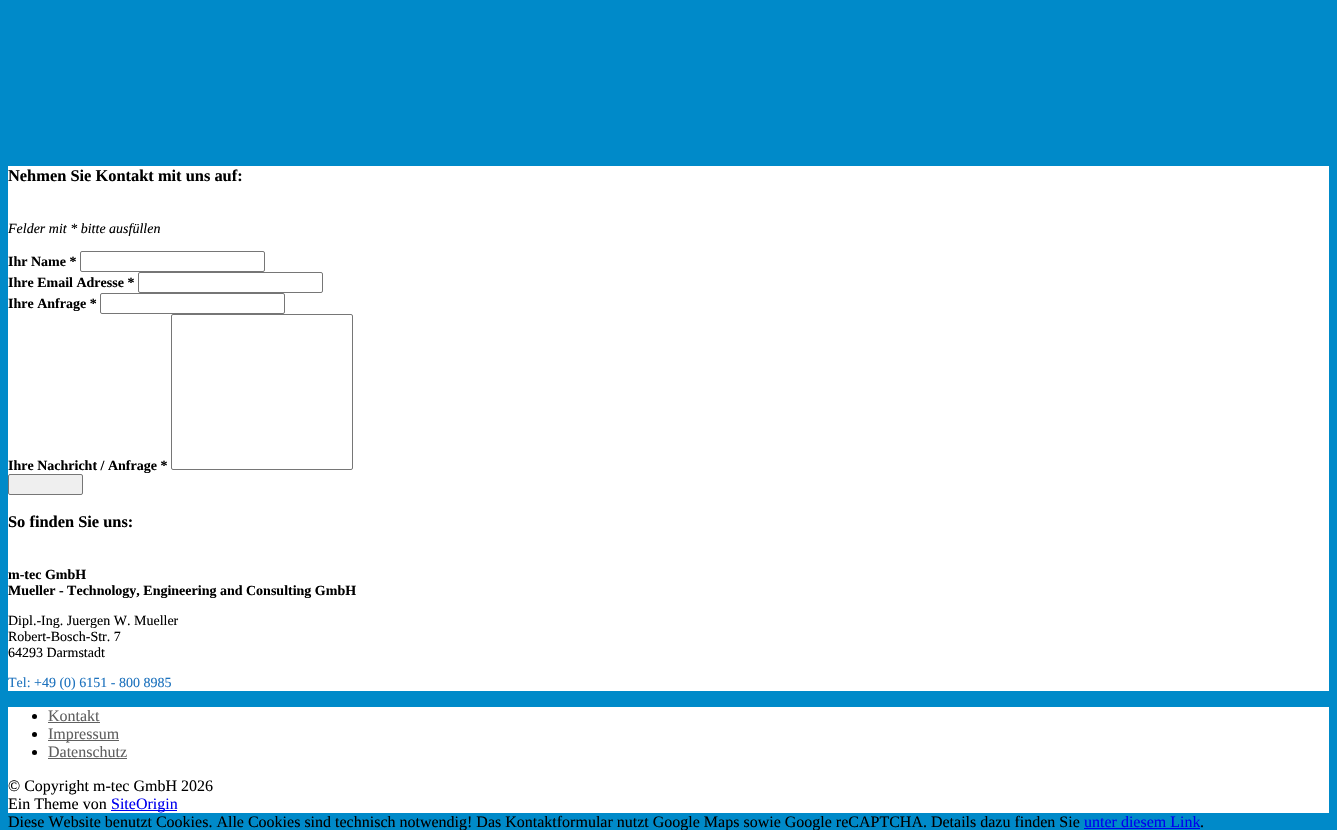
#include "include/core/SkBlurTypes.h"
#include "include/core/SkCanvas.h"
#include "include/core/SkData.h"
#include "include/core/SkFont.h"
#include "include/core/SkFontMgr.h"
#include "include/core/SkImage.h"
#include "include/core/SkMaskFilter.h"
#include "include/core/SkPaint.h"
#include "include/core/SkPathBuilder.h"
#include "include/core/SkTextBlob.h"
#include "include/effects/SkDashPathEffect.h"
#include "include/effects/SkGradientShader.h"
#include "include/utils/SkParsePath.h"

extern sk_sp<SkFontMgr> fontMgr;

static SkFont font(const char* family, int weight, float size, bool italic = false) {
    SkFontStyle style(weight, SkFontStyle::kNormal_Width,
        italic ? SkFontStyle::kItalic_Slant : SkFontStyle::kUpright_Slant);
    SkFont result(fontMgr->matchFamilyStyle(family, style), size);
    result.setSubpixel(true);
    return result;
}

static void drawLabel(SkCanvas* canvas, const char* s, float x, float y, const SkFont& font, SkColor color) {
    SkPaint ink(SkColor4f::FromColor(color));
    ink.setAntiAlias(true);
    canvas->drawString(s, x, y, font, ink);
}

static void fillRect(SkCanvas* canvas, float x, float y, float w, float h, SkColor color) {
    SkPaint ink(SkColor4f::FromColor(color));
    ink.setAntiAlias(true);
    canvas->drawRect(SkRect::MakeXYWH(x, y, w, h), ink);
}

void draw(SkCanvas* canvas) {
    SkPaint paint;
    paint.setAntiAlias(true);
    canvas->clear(0xFF008AC9);
    fillRect(canvas, 8, 166, 1321, 525, 0xFFFFFFFF);
    SkFont font1 = font("Liberation Serif", 700, 16.4f);
    drawLabel(canvas, "Nehmen Sie Kontakt mit uns auf:", 8, 181, font1, 0xFF000000);
    SkFont font2 = font("Liberation Serif", 400, 14, true);
    drawLabel(canvas, "Felder mit * bitte ausfüllen", 8, 233, font2, 0xFF000000);
    SkFont font3 = font("Liberation Serif", 700, 14);
    drawLabel(canvas, "Ihr Name *", 8, 266, font3, 0xFF000000);
    paint.setStroke(true);
    paint.setStrokeWidth(1);
    paint.setColor(0xFF767676);
    canvas->drawRoundRect(SkRect::MakeXYWH(80.5f, 251.5f, 184, 20), 1.5f, 1.5f, paint);
    drawLabel(canvas, "Ihre Email Adresse *", 8, 287, font3, 0xFF000000);
    canvas->drawRoundRect(SkRect::MakeXYWH(138.5f, 272.5f, 184, 20), 1.5f, 1.5f, paint);
    drawLabel(canvas, "Ihre Anfrage *", 8, 308, font3, 0xFF000000);
    canvas->drawRoundRect(SkRect::MakeXYWH(100.5f, 293.5f, 184, 20), 1.5f, 1.5f, paint);
    drawLabel(canvas, "Ihre Nachricht / Anfrage *", 8, 470, font3, 0xFF000000);
    canvas->drawRoundRect(SkRect::MakeXYWH(171.5f, 314.5f, 181, 155), 1.5f, 1.5f, paint);
    paint.setStroke(false);
    paint.setColor(0xFFEFEFEF);
    canvas->drawRoundRect(SkRect::MakeXYWH(8.5f, 474.5f, 74, 20), 1.5f, 1.5f, paint);
    paint.setStroke(true);
    paint.setColor(0xFF767676);
    canvas->drawRoundRect(SkRect::MakeXYWH(8.5f, 474.5f, 74, 20), 1.5f, 1.5f, paint);
    drawLabel(canvas, "So finden Sie uns:", 8, 527, font1, 0xFF000000);
    drawLabel(canvas, "m-tec GmbH", 8, 579, font3, 0xFF000000);
    drawLabel(canvas, "Mueller - Technology, Engineering and Consulting GmbH", 8, 595, font3, 0xFF000000);
    SkFont font4 = font("Liberation Serif", 400, 14);
    drawLabel(canvas, "Dipl.-Ing. Juergen W. Mueller", 8, 625, font4, 0xFF000000);
    drawLabel(canvas, "Robert-Bosch-Str. 7", 8, 641, font4, 0xFF000000);
    drawLabel(canvas, "64293 Darmstadt", 8, 657, font4, 0xFF000000);
    drawLabel(canvas, "Tel: +49 (0) 6151 - 800 8985", 8, 687, font4, 0xFF1E73BE);
    fillRect(canvas, 8, 707, 1321, 106, 0xFFFFFFFF);
    paint.setStroke(false);
    paint.setColor(0xFF000000);
    canvas->drawCircle(34.5f, 716.5f, 2.5f, paint);
    SkFont font5 = font("Liberation Serif", 400, 16);
    drawLabel(canvas, "Kontakt", 48, 721, font5, 0xFF606060);
    fillRect(canvas, 48, 722, 52, 1, 0xFF606060);
    canvas->drawCircle(34.5f, 734.5f, 2.5f, paint);
    fillRect(canvas, 48, 740, 71, 1, 0xFF606060);
    drawLabel(canvas, "Impressum", 48, 739, font5, 0xFF606060);
    canvas->drawCircle(34.5f, 752.5f, 2.5f, paint);
    drawLabel(canvas, "Datenschutz", 48, 757, font5, 0xFF606060);
    fillRect(canvas, 48, 758, 79, 1, 0xFF606060);
    drawLabel(canvas, "© Copyright m-tec GmbH 2026", 8, 791, font5, 0xFF000000);
    drawLabel(canvas, "Ein Theme von", 8, 809, font5, 0xFF000000);
    fillRect(canvas, 111, 810, 66, 1, 0xFF0000EE);
    drawLabel(canvas, "SiteOrigin", 111, 809, font5, 0xFF0000EE);
    drawLabel(canvas, "Diese Website benutzt Cookies. Alle Cookies sind technisch notwendig! Das Kontaktformular nutzt Google Maps sowie Google reCAPTCHA. Details dazu finden Sie", 8, 827, font5, 0xFF000000);
    drawLabel(canvas, "unter diesem Link", 1084, 827, font5, 0xFF0000EE);
    drawLabel(canvas, ".", 1200, 827, font5, 0xFF000000);
    fillRect(canvas, 1084, 828, 116, 1, 0xFF0000EE);
}
